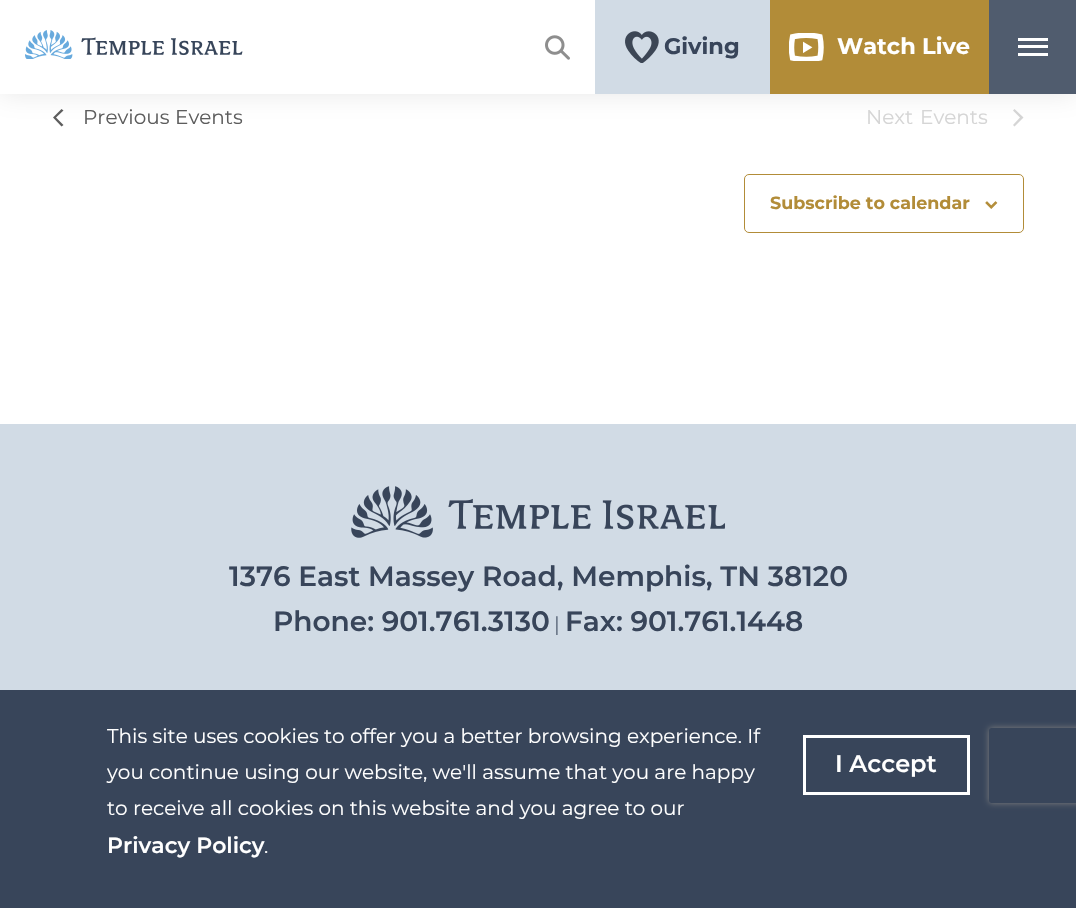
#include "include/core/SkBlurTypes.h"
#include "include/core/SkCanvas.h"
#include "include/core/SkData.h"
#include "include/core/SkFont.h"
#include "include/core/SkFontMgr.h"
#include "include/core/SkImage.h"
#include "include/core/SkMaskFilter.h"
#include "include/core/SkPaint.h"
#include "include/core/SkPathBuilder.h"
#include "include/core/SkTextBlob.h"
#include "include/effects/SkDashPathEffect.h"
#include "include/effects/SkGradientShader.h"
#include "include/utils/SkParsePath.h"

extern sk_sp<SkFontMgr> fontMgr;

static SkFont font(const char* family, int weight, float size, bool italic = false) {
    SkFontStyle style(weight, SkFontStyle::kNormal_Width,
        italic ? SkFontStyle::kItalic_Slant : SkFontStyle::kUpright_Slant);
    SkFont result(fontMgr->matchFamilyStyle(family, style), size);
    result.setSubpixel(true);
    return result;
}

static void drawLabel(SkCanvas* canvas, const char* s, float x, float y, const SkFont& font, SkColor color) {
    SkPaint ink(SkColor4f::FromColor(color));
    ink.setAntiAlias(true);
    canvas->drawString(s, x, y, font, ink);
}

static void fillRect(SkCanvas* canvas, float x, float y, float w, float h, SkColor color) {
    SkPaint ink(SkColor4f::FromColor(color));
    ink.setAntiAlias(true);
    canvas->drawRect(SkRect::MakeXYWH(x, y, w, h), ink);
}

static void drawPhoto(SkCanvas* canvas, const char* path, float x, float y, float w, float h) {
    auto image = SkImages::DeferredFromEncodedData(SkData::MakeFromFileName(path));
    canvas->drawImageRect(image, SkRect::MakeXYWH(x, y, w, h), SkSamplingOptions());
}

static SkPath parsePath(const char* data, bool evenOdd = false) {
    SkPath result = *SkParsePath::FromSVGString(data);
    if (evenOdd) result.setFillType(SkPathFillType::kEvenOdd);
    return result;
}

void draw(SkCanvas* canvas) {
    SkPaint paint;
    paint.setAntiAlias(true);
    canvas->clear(0xFFFFFFFF);
    paint.setColor(0xFF5D5D5D);
    canvas->drawPath(parsePath("M63.5 125L61.5 126.5L53 117.5L61.5 109L63.5 110.5L56 117.5Z"), paint);
    paint.setColor(0xFFD5D5D5);
    canvas->drawPath(parsePath("M1013 110.5L1014.5 109L1023.5 117.5L1014.5 126.5L1013 125L1020 117.5Z"), paint);
    paint.setColor(0x30808080);
    paint.setMaskFilter(SkMaskFilter::MakeBlur(kNormal_SkBlurStyle, 12.5f));
    canvas->drawRect(SkRect::MakeXYWH(0, 0, 1076, 94), paint);
    paint.setMaskFilter(nullptr);
    fillRect(canvas, 0, 0, 595, 94, 0xFFFFFFFF);
    drawPhoto(canvas, "assets/img1.png", 25, 30, 218, 29);
    drawPhoto(canvas, "assets/img2.png", 545, 35, 25, 25);
    fillRect(canvas, 595, 0, 175, 94, 0xFFD1DBE5);
    drawPhoto(canvas, "assets/img3.png", 625, 31, 34, 32);
    SkFont font1 = font("Montserrat", 700, 22.5f);
    drawLabel(canvas, "Giving", 664, 54, font1, 0xFF38455A);
    fillRect(canvas, 770, 0, 219, 94, 0xFFB28C38);
    drawPhoto(canvas, "assets/img4.png", 789, 33, 35, 28);
    drawLabel(canvas, "Watch Live", 837, 54, font1, 0xFFFFFFFF);
    fillRect(canvas, 989, 0, 87, 94, 0xFF505C6E);
    fillRect(canvas, 1018, 45, 30, 3, 0xFFFFFFFF);
    fillRect(canvas, 1018, 38, 30, 3, 0xFFFFFFFF);
    fillRect(canvas, 1018, 53, 30, 3, 0xFFFFFFFF);
    SkFont font2 = font("Montserrat", 400, 20);
    drawLabel(canvas, "Previous", 83, 124, font2, 0xFF5D5D5D);
    drawLabel(canvas, "Events", 175, 124, font2, 0xFF5D5D5D);
    drawLabel(canvas, "Next", 866, 124, font2, 0xFFD5D5D5);
    drawLabel(canvas, "Events", 920, 124, font2, 0xFFD5D5D5);
    paint.setStroke(true);
    paint.setStrokeWidth(1);
    paint.setColor(0xFFB28C38);
    canvas->drawRoundRect(SkRect::MakeXYWH(744.5f, 174.5f, 279, 58), 4.5f, 4.5f, paint);
    SkFont font3 = font("Montserrat", 700, 17.5f);
    drawLabel(canvas, "Subscribe to calendar", 770, 209, font3, 0xFFB28C38);
    drawPhoto(canvas, "assets/img5.png", 985, 201, 13, 8);
    fillRect(canvas, 0, 424, 1076, 266, 0xFFD1DBE5);
    drawPhoto(canvas, "assets/img6.png", 351, 486, 374, 52);
    SkFont font4 = font("Montserrat", 600, 28);
    drawLabel(canvas, "1376 East Massey Road, Memphis, TN 38120", 229, 586, font4, 0xFF38455A);
    drawLabel(canvas, "Phone: 901.761.3130", 273, 631, font4, 0xFF38455A);
    SkFont font5 = font("Montserrat", 300, 20);
    drawLabel(canvas, "|", 554, 631, font5, 0xFF38455A);
    drawLabel(canvas, "Fax: 901.761.1448", 565, 631, font4, 0xFF38455A);
    fillRect(canvas, 0, 690, 1076, 218, 0xFF38455A);
    drawLabel(canvas, "This site uses cookies to offer you a better browsing experience. If", 107, 743, font2, 0xFFFFFFFF);
    drawLabel(canvas, "you continue using our website, we'll assume that you are happy", 107, 779, font2, 0xFFFFFFFF);
    drawLabel(canvas, "to receive all cookies on this website and you agree to our", 107, 815, font2, 0xFFFFFFFF);
    SkFont font6 = font("Montserrat", 600, 22);
    drawLabel(canvas, "Privacy Policy", 107, 853, font6, 0xFFFFFFFF);
    drawLabel(canvas, ".", 264, 853, font2, 0xFFFFFFFF);
    paint.setStrokeWidth(3);
    paint.setColor(0xFFFFFFFF);
    canvas->drawRect(SkRect::MakeXYWH(804.5f, 736.5f, 164, 57), paint);
    SkFont font7 = font("Montserrat", 600, 24);
    drawLabel(canvas, "I Accept", 835, 772, font7, 0xFFFFFFFF);
    canvas->save();
    canvas->clipPath(parsePath("M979 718H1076V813H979ZM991.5 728H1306.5C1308 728 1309 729 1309 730.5V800.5C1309 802 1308 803 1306.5 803H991.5C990 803 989 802 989 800.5V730.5C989 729 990 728 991.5 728Z", true), true);
    paint.setStroke(false);
    paint.setColor(0xFF808080);
    paint.setMaskFilter(SkMaskFilter::MakeBlur(kNormal_SkBlurStyle, 3));
    canvas->drawRoundRect(SkRect::MakeXYWH(989, 728, 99, 75), 2.5f, 2.5f, paint);
    paint.setMaskFilter(nullptr);
    canvas->restore();
}
